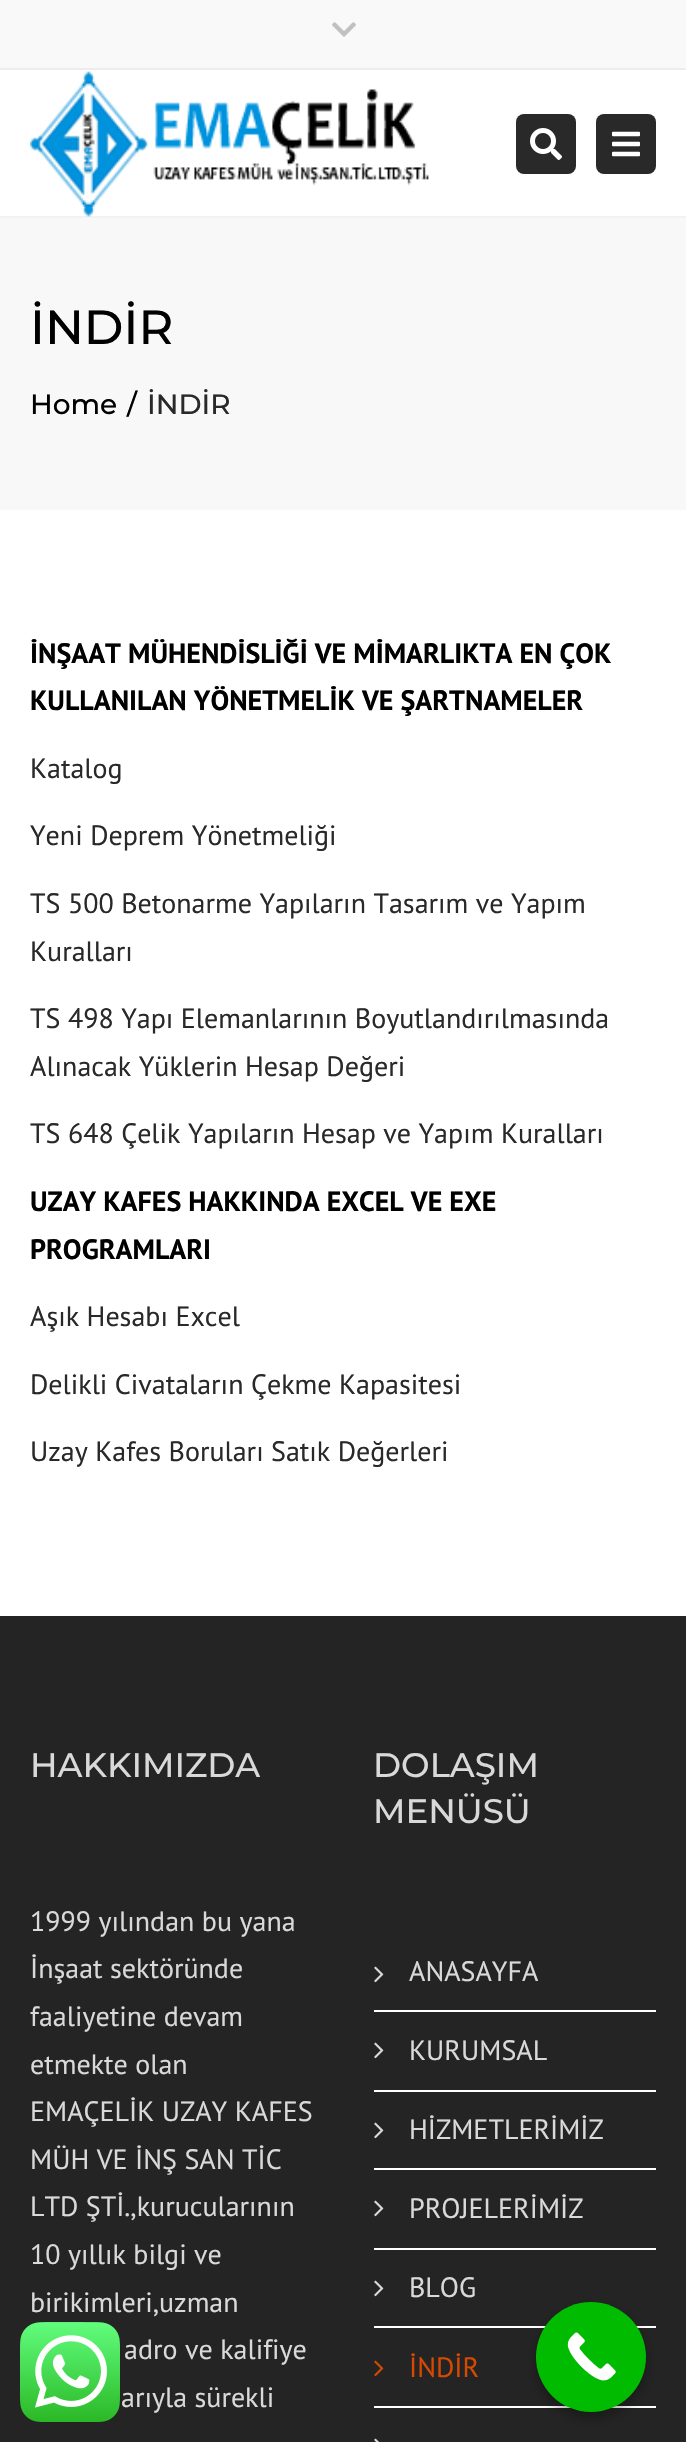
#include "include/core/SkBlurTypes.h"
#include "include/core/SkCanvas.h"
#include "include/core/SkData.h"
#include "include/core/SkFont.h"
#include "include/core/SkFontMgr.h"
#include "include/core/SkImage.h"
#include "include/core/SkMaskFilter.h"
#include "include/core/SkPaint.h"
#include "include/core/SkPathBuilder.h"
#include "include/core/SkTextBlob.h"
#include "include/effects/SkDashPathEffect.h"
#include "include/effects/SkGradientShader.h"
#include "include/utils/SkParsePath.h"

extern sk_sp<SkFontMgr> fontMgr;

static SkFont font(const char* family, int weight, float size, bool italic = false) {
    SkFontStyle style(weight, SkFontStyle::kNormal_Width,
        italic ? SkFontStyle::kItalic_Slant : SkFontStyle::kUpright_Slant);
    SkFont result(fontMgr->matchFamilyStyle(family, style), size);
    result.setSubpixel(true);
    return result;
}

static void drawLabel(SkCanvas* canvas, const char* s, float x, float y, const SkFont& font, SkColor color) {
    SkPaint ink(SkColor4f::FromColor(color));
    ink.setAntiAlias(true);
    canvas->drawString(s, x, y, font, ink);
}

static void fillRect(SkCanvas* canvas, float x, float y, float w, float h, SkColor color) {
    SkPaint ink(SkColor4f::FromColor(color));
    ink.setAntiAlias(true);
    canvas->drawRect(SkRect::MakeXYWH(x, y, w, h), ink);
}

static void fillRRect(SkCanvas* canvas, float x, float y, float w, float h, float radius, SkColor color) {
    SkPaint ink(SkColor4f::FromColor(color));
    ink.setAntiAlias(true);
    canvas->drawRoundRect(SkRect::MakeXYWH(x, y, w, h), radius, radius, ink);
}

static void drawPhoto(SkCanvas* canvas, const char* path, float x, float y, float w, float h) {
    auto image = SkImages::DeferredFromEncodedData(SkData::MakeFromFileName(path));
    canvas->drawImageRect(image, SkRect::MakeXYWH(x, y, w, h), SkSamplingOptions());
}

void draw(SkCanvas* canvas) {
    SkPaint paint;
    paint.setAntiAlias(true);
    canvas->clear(0xFFFFFFFF);
    fillRect(canvas, 0, 0, 686, 68, 0xFFF9F9F9);
    fillRect(canvas, 0, 68, 686, 2, 0xFFEDEDED);
    drawPhoto(canvas, "assets/img1.png", 332, 22, 24, 15);
    fillRect(canvas, 0, 216, 686, 2, 0xFFF2F2F2);
    drawPhoto(canvas, "assets/img2.png", 30, 71, 399, 146);
    fillRRect(canvas, 516, 114, 60, 60, 8, 0xFF292929);
    drawPhoto(canvas, "assets/img3.png", 530, 128, 32, 32);
    fillRRect(canvas, 596, 114, 60, 60, 8, 0xFF292929);
    drawPhoto(canvas, "assets/img4.png", 612, 131, 28, 26);
    fillRect(canvas, 0, 218, 686, 292, 0xFFF8F8F8);
    SkFont font1 = font("Montserrat", 500, 48);
    drawLabel(canvas, "İNDİR", 30, 344, font1, 0xFF000000);
    SkFont font2 = font("Montserrat", 500, 28);
    drawLabel(canvas, "Home", 30, 414, font2, 0xFF000000);
    drawLabel(canvas, "/", 127, 414, font2, 0xFF000000);
    drawLabel(canvas, "İNDİR", 147, 414, font2, 0xFF292929);
    SkFont font3 = font("PT Sans", 700, 28);
    drawLabel(canvas, "İNŞAAT MÜHENDİSLİĞİ VE MİMARLIKTA EN ÇOK", 30, 663, font3, 0xFF000000);
    drawLabel(canvas, "KULLANILAN YÖNETMELİK VE ŞARTNAMELER", 30, 710, font3, 0xFF000000);
    SkFont font4 = font("PT Sans", 400, 28);
    drawLabel(canvas, "Katalog", 30, 778, font4, 0xFF292929);
    drawLabel(canvas, "Yeni Deprem Yönetmeliği", 30, 845, font4, 0xFF292929);
    drawLabel(canvas, "TS 500 Betonarme Yapıların Tasarım ve Yapım", 30, 913, font4, 0xFF292929);
    drawLabel(canvas, "Kuralları", 30, 961, font4, 0xFF292929);
    drawLabel(canvas, "TS 498 Yapı Elemanlarının Boyutlandırılmasında", 30, 1028, font4, 0xFF292929);
    drawLabel(canvas, "Alınacak Yüklerin Hesap Değeri", 30, 1076, font4, 0xFF292929);
    drawLabel(canvas, "TS 648 Çelik Yapıların Hesap ve Yapım Kuralları", 30, 1143, font4, 0xFF292929);
    drawLabel(canvas, "UZAY KAFES HAKKINDA EXCEL VE EXE", 30, 1211, font3, 0xFF000000);
    drawLabel(canvas, "PROGRAMLARI", 30, 1259, font3, 0xFF000000);
    drawLabel(canvas, "Aşık Hesabı Excel", 30, 1326, font4, 0xFF292929);
    drawLabel(canvas, "Delikli Civataların Çekme Kapasitesi", 30, 1394, font4, 0xFF292929);
    drawLabel(canvas, "Uzay Kafes Boruları Satık Değerleri", 30, 1461, font4, 0xFF292929);
    fillRect(canvas, 0, 1616, 686, 826, 0xFF242424);
    SkFont font5 = font("Montserrat", 500, 34);
    drawLabel(canvas, "HAKKIMIZDA", 30, 1777, font5, 0xFFD9D9D9);
    drawLabel(canvas, "1999 yılından bu yana", 30, 1931, font4, 0xFFD9D9D9);
    drawLabel(canvas, "İnşaat sektöründe", 30, 1978, font4, 0xFFD9D9D9);
    drawLabel(canvas, "faaliyetine devam", 30, 2026, font4, 0xFFD9D9D9);
    drawLabel(canvas, "etmekte olan", 30, 2074, font4, 0xFFD9D9D9);
    drawLabel(canvas, "EMAÇELİK UZAY KAFES", 30, 2121, font4, 0xFFD9D9D9);
    drawLabel(canvas, "MÜH VE İNŞ SAN TİC", 30, 2169, font4, 0xFFD9D9D9);
    drawLabel(canvas, "LTD ŞTİ.,kurucularının", 30, 2216, font4, 0xFFD9D9D9);
    drawLabel(canvas, "10 yıllık bilgi ve", 30, 2264, font4, 0xFFD9D9D9);
    drawLabel(canvas, "birikimleri,uzman", 30, 2312, font4, 0xFFD9D9D9);
    drawLabel(canvas, "adro ve kalifiye", 124, 2359, font4, 0xFFD9D9D9);
    drawLabel(canvas, "arıyla sürekli", 121, 2407, font4, 0xFFD9D9D9);
    drawLabel(canvas, "DOLAŞIM", 373, 1777, font5, 0xFFD9D9D9);
    drawLabel(canvas, "MENÜSÜ", 373, 1823, font5, 0xFFD9D9D9);
    fillRect(canvas, 374, 2010, 282, 2, 0xFFFFFFFF);
    drawPhoto(canvas, "assets/img5.png", 374, 1966, 10, 17);
    drawLabel(canvas, "ANASAYFA", 409, 1981, font4, 0xFFD9D9D9);
    fillRect(canvas, 374, 2090, 282, 2, 0xFFFFFFFF);
    drawPhoto(canvas, "assets/img5.png", 374, 2042, 10, 17);
    drawLabel(canvas, "KURUMSAL", 409, 2060, font4, 0xFFD9D9D9);
    fillRect(canvas, 374, 2168, 282, 2, 0xFFFFFFFF);
    drawPhoto(canvas, "assets/img5.png", 374, 2122, 10, 17);
    drawLabel(canvas, "HİZMETLERİMİZ", 409, 2139, font4, 0xFFD9D9D9);
    fillRect(canvas, 374, 2248, 282, 2, 0xFFFFFFFF);
    drawPhoto(canvas, "assets/img5.png", 374, 2200, 10, 17);
    drawLabel(canvas, "PROJELERİMİZ", 409, 2218, font4, 0xFFD9D9D9);
    fillRect(canvas, 374, 2326, 282, 2, 0xFFFFFFFF);
    drawPhoto(canvas, "assets/img5.png", 374, 2280, 10, 17);
    drawLabel(canvas, "BLOG", 409, 2297, font4, 0xFFD9D9D9);
    fillRect(canvas, 374, 2406, 282, 2, 0xFFFFFFFF);
    drawPhoto(canvas, "assets/img6.png", 374, 2360, 10, 17);
    drawLabel(canvas, "İNDİR", 409, 2377, font4, 0xFFD54900);
    drawPhoto(canvas, "assets/img7.png", 374, 2438, 5, 4);
    drawPhoto(canvas, "assets/img8.png", 20, 2322, 100, 100);
    paint.setColor(0x4D000000);
    paint.setMaskFilter(SkMaskFilter::MakeBlur(kNormal_SkBlurStyle, 6));
    canvas->drawRoundRect(SkRect::MakeXYWH(536, 2308, 110, 110), 55, 55, paint);
    paint.setMaskFilter(nullptr);
    paint.setColor(0xFF00BB00);
    canvas->drawCircle(591, 2357, 55, paint);
    drawPhoto(canvas, "assets/img9.png", 567, 2332, 49, 49);
}
